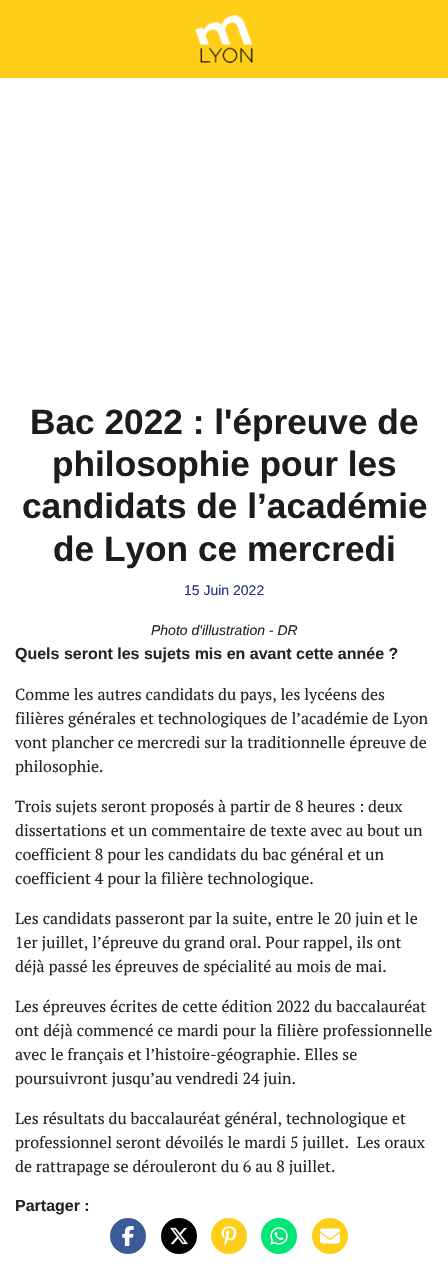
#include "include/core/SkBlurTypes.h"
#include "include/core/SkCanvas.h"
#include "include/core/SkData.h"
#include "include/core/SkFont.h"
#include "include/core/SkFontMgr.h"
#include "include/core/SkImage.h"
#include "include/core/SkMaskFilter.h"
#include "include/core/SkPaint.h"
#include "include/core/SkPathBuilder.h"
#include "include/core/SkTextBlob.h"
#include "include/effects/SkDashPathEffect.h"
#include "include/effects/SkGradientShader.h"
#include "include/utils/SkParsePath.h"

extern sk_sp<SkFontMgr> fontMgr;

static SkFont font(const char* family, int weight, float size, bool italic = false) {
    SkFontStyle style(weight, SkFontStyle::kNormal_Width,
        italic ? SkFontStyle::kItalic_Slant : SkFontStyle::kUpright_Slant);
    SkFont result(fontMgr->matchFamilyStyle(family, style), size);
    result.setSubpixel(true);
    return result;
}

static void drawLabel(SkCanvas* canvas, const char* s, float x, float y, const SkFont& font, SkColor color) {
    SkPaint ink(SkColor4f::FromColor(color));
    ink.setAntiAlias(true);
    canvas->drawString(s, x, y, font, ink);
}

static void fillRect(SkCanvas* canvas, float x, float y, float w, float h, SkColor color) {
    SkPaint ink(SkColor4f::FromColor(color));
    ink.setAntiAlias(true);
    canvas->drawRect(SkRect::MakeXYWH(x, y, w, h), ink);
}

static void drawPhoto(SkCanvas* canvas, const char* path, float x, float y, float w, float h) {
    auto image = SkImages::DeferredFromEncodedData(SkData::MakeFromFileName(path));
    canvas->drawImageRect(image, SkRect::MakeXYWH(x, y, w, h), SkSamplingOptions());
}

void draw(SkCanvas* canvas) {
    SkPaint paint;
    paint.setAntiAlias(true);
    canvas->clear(0xFFFFFFFF);
    fillRect(canvas, 0, 0, 448, 78, 0xFFFFCE18);
    drawPhoto(canvas, "assets/img1.png", 195, 15, 58, 48);
    SkFont font1 = font("Liberation Sans", 700, 35.25f);
    drawLabel(canvas, "Bac 2022 : l'épreuve de", 30, 434, font1, 0xFF1C1C1C);
    drawLabel(canvas, "philosophie pour les", 52, 476, font1, 0xFF1C1C1C);
    drawLabel(canvas, "candidats de l’académie", 22, 518, font1, 0xFF1C1C1C);
    drawLabel(canvas, "de Lyon ce mercredi", 53, 561, font1, 0xFF1C1C1C);
    SkFont font2 = font("Liberation Sans", 400, 14);
    drawLabel(canvas, "15 Juin 2022", 184, 595, font2, 0xFF213180);
    SkFont font3 = font("Liberation Sans", 400, 14, true);
    drawLabel(canvas, "Photo d'illustration - DR", 151, 635, font3, 0xFF212529);
    SkFont font4 = font("Liberation Sans", 700, 16);
    drawLabel(canvas, "Quels seront les sujets mis en avant cette année ?", 15, 659, font4, 0xFF212529);
    SkFont font5 = font("PT Serif", 400, 16);
    drawLabel(canvas, "Comme les autres candidats du pays, les lycéens des", 15, 700, font5, 0xFF212529);
    drawLabel(canvas, "filières générales et technologiques de l’académie de Lyon", 15, 724, font5, 0xFF212529);
    drawLabel(canvas, "vont plancher ce mercredi sur la traditionnelle épreuve de", 15, 748, font5, 0xFF212529);
    drawLabel(canvas, "philosophie.", 15, 772, font5, 0xFF212529);
    drawLabel(canvas, "Trois sujets seront proposés à partir de 8 heures : deux", 15, 812, font5, 0xFF212529);
    drawLabel(canvas, "dissertations et un commentaire de texte avec au bout un", 15, 836, font5, 0xFF212529);
    drawLabel(canvas, "coefficient 8 pour les candidats du bac général et un", 15, 860, font5, 0xFF212529);
    drawLabel(canvas, "coefficient 4 pour la filière technologique.", 15, 884, font5, 0xFF212529);
    drawLabel(canvas, "Les candidats passeront par la suite, entre le 20 juin et le", 15, 924, font5, 0xFF212529);
    drawLabel(canvas, "1er juillet, l’épreuve du grand oral. Pour rappel, ils ont", 15, 948, font5, 0xFF212529);
    drawLabel(canvas, "déjà passé les épreuves de spécialité au mois de mai.", 15, 972, font5, 0xFF212529);
    drawLabel(canvas, "Les épreuves écrites de cette édition 2022 du baccalauréat", 15, 1012, font5, 0xFF212529);
    drawLabel(canvas, "ont déjà commencé ce mardi pour la filière professionnelle", 15, 1036, font5, 0xFF212529);
    drawLabel(canvas, "avec le français et l’histoire-géographie. Elles se", 15, 1060, font5, 0xFF212529);
    drawLabel(canvas, "poursuivront jusqu’au vendredi 24 juin.", 15, 1084, font5, 0xFF212529);
    drawLabel(canvas, "Les résultats du baccalauréat général, technologique et", 15, 1124, font5, 0xFF212529);
    drawLabel(canvas, "professionnel seront dévoilés le mardi 5 juillet.  Les oraux", 15, 1148, font5, 0xFF212529);
    drawLabel(canvas, "de rattrapage se dérouleront du 6 au 8 juillet.", 15, 1172, font5, 0xFF212529);
    drawLabel(canvas, "Partager :", 15, 1211, font4, 0xFF212529);
    paint.setColor(0xFF3B5997);
    canvas->drawCircle(128, 1236, 18, paint);
    drawPhoto(canvas, "assets/img2.png", 122, 1226, 12, 20);
    paint.setColor(0xFF000000);
    canvas->drawCircle(179, 1236, 18, paint);
    drawPhoto(canvas, "assets/img3.png", 170, 1227, 18, 18);
    paint.setColor(0xFFFFCE18);
    canvas->drawCircle(229, 1236, 18, paint);
    drawPhoto(canvas, "assets/img4.png", 221, 1226, 16, 20);
    paint.setColor(0xFF01E675);
    canvas->drawCircle(279, 1236, 18, paint);
    drawPhoto(canvas, "assets/img5.png", 270, 1227, 18, 18);
    paint.setColor(0xFFFFCE18);
    canvas->drawCircle(330, 1236, 18, paint);
    drawPhoto(canvas, "assets/img6.png", 320, 1228, 20, 16);
}
